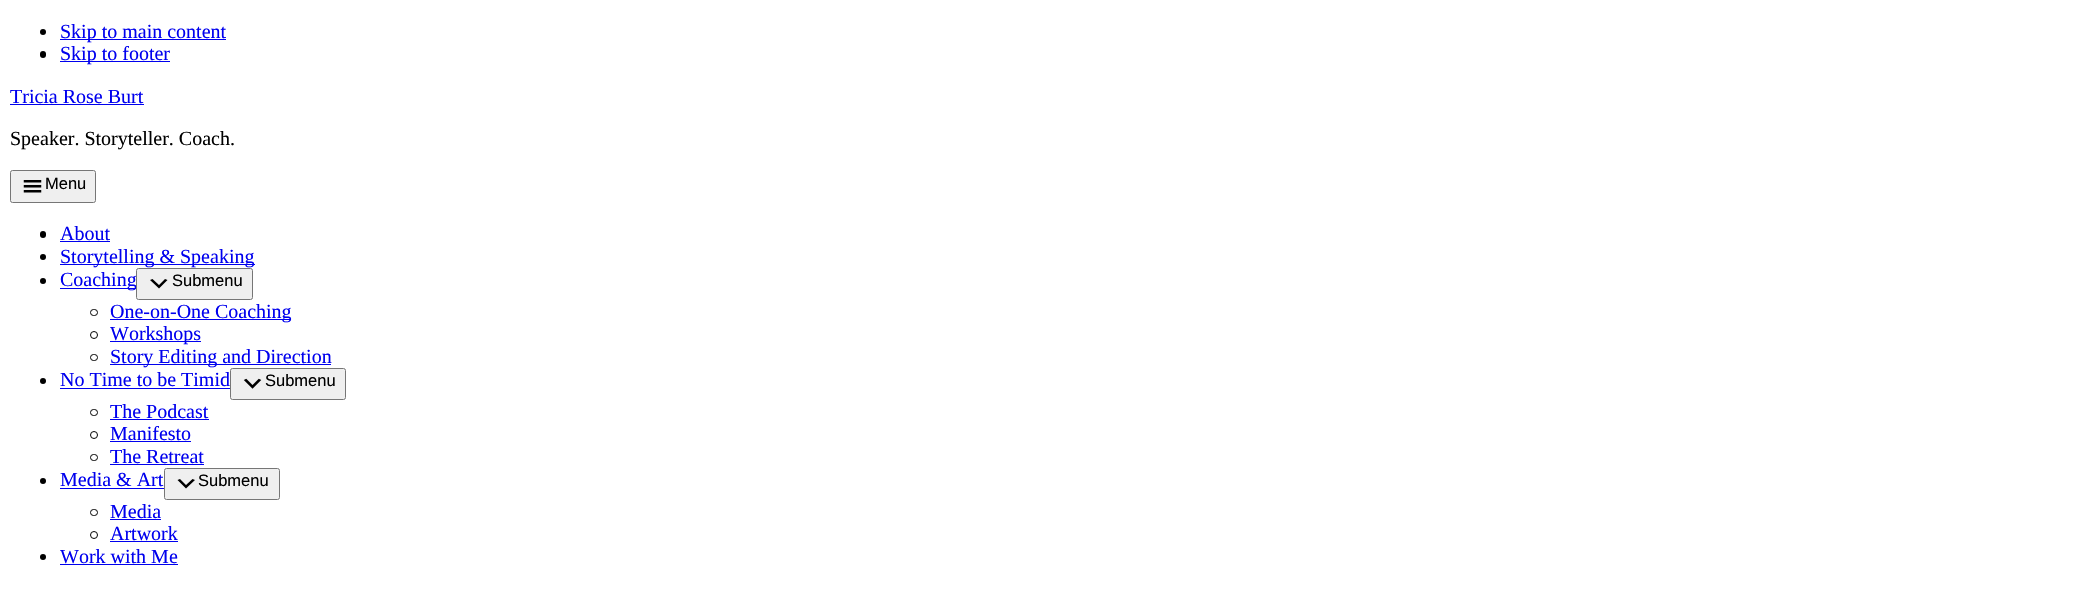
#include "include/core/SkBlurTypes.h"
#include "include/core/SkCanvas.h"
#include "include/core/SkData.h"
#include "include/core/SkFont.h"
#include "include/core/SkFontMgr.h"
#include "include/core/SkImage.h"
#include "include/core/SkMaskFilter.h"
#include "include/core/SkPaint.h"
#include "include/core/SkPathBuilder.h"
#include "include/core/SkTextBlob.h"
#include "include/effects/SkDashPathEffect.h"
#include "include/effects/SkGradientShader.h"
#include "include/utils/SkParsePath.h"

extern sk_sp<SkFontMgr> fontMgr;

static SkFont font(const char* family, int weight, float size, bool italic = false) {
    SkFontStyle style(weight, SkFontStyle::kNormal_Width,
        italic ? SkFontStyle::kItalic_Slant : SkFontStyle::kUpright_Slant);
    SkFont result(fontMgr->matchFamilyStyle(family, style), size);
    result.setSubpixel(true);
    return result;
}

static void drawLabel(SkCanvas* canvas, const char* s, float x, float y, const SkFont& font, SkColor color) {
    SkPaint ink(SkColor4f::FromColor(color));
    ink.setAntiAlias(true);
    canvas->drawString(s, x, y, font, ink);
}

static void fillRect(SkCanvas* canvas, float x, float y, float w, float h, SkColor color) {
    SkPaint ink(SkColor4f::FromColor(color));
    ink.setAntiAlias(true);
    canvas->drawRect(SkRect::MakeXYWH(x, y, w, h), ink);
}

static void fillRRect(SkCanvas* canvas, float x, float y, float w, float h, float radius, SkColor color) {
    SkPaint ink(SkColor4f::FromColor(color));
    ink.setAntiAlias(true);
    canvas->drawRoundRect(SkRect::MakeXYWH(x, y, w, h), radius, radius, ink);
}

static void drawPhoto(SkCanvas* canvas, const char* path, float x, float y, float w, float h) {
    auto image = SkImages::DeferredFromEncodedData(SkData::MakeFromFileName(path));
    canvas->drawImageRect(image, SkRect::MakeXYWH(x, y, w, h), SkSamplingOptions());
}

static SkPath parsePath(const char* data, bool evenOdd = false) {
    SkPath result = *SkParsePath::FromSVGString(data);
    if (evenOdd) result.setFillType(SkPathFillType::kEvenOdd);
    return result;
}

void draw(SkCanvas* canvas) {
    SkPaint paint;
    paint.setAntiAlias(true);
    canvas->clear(0xFFFFFFFF);
    paint.setColor(0xFF000000);
    canvas->drawCircle(43, 32, 3, paint);
    fillRect(canvas, 60, 39, 166, 1, 0xFF0000EE);
    SkFont font1 = font("Liberation Serif", 400, 20);
    drawLabel(canvas, "Skip to main content", 60, 38, font1, 0xFF0000EE);
    fillRRect(canvas, 40, 51, 6, 7, 3, 0xFF000000);
    fillRect(canvas, 60, 61, 110, 1, 0xFF0000EE);
    drawLabel(canvas, "Skip to footer", 60, 60, font1, 0xFF0000EE);
    drawLabel(canvas, "Tricia Rose Burt", 10, 103, font1, 0xFF0000EE);
    fillRect(canvas, 10, 104, 134, 1, 0xFF0000EE);
    drawLabel(canvas, "Speaker. Storyteller. Coach.", 10, 145, font1, 0xFF000000);
    paint.setColor(0xFFEFEFEF);
    canvas->drawRoundRect(SkRect::MakeXYWH(10.5f, 170.5f, 85, 32), 2, 2, paint);
    paint.setStroke(true);
    paint.setStrokeWidth(1);
    paint.setColor(0xFF767676);
    canvas->drawRoundRect(SkRect::MakeXYWH(10.5f, 170.5f, 85, 32), 2, 2, paint);
    drawPhoto(canvas, "assets/img1.png", 23, 180, 19, 13);
    SkFont font2 = font("Liberation Sans", 400, 16.5f);
    drawLabel(canvas, "Menu", 45, 189, font2, 0xFF000000);
    fillRRect(canvas, 40, 231, 6, 7, 3, 0xFF000000);
    drawLabel(canvas, "About", 60, 240, font1, 0xFF0000EE);
    fillRect(canvas, 60, 241, 50, 1, 0xFF0000EE);
    paint.setStroke(false);
    paint.setColor(0xFF000000);
    canvas->drawCircle(43, 257, 3, paint);
    fillRect(canvas, 60, 264, 195, 1, 0xFF0000EE);
    drawLabel(canvas, "Storytelling & Speaking", 60, 263, font1, 0xFF0000EE);
    canvas->drawCircle(43, 281, 3, paint);
    fillRect(canvas, 60, 288, 76, 1, 0xFF0000EE);
    drawLabel(canvas, "Coaching", 60, 286, font1, 0xFF0000EE);
    paint.setColor(0xFFEFEFEF);
    canvas->drawRoundRect(SkRect::MakeXYWH(136.5f, 268.5f, 116, 31), 2, 2, paint);
    paint.setStroke(true);
    paint.setColor(0xFF767676);
    canvas->drawRoundRect(SkRect::MakeXYWH(136.5f, 268.5f, 116, 31), 2, 2, paint);
    paint.setStroke(false);
    paint.setColor(0xFF000000);
    canvas->drawPath(parsePath("M152.5 279L159 285L165 279L167.5 280L159 288.5L150 280Z"), paint);
    drawLabel(canvas, "Submenu", 172, 286, font2, 0xFF000000);
    paint.setStroke(true);
    canvas->drawRoundRect(SkRect::MakeXYWH(90.5f, 309.5f, 7, 6), 3, 3, paint);
    fillRect(canvas, 110, 319, 181, 1, 0xFF0000EE);
    drawLabel(canvas, "One-on-One Coaching", 110, 318, font1, 0xFF0000EE);
    canvas->drawCircle(94, 335, 3.5f, paint);
    fillRect(canvas, 110, 341, 91, 1, 0xFF0000EE);
    drawLabel(canvas, "Workshops", 110, 340, font1, 0xFF0000EE);
    canvas->drawRoundRect(SkRect::MakeXYWH(90.5f, 354.5f, 7, 6), 3, 3, paint);
    fillRect(canvas, 110, 364, 221, 1, 0xFF0000EE);
    drawLabel(canvas, "Story Editing and Direction", 110, 363, font1, 0xFF0000EE);
    paint.setStroke(false);
    canvas->drawCircle(43, 381, 3, paint);
    drawLabel(canvas, "No Time to be Timid", 60, 386, font1, 0xFF0000EE);
    fillRect(canvas, 60, 388, 170, 1, 0xFF0000EE);
    paint.setColor(0xFFEFEFEF);
    canvas->drawRoundRect(SkRect::MakeXYWH(230.5f, 368.5f, 115, 31), 2, 2, paint);
    paint.setStroke(true);
    paint.setColor(0xFF767676);
    canvas->drawRoundRect(SkRect::MakeXYWH(230.5f, 368.5f, 115, 31), 2, 2, paint);
    drawPhoto(canvas, "assets/img2.png", 243, 378, 19, 11);
    drawLabel(canvas, "Submenu", 265, 386, font2, 0xFF000000);
    paint.setColor(0xFF000000);
    canvas->drawRoundRect(SkRect::MakeXYWH(90.5f, 409.5f, 7, 6), 3, 3, paint);
    drawLabel(canvas, "The Podcast", 110, 418, font1, 0xFF0000EE);
    fillRect(canvas, 110, 419, 99, 1, 0xFF0000EE);
    canvas->drawCircle(94, 435, 3.5f, paint);
    drawLabel(canvas, "Manifesto", 110, 440, font1, 0xFF0000EE);
    fillRect(canvas, 110, 441, 81, 1, 0xFF0000EE);
    canvas->drawRoundRect(SkRect::MakeXYWH(90.5f, 454.5f, 7, 6), 3, 3, paint);
    drawLabel(canvas, "The Retreat", 110, 463, font1, 0xFF0000EE);
    fillRect(canvas, 110, 464, 94, 1, 0xFF0000EE);
    paint.setStroke(false);
    canvas->drawCircle(43, 481, 3, paint);
    drawLabel(canvas, "Media & Art", 60, 486, font1, 0xFF0000EE);
    fillRect(canvas, 60, 488, 104, 1, 0xFF0000EE);
    paint.setColor(0xFFEFEFEF);
    canvas->drawRoundRect(SkRect::MakeXYWH(164.5f, 468.5f, 115, 31), 2, 2, paint);
    paint.setStroke(true);
    paint.setColor(0xFF767676);
    canvas->drawRoundRect(SkRect::MakeXYWH(164.5f, 468.5f, 115, 31), 2, 2, paint);
    paint.setStroke(false);
    paint.setColor(0xFF000000);
    canvas->drawPath(parsePath("M180 479L186 485L192.5 479L195 480L186 488.5L177.5 480Z"), paint);
    drawLabel(canvas, "Submenu", 198, 486, font2, 0xFF000000);
    paint.setStroke(true);
    canvas->drawRoundRect(SkRect::MakeXYWH(90.5f, 509.5f, 7, 6), 3, 3, paint);
    drawLabel(canvas, "Media", 110, 518, font1, 0xFF0000EE);
    fillRect(canvas, 110, 519, 51, 1, 0xFF0000EE);
    canvas->drawCircle(94, 535, 3.5f, paint);
    drawLabel(canvas, "Artwork", 110, 540, font1, 0xFF0000EE);
    fillRect(canvas, 110, 541, 68, 1, 0xFF0000EE);
    paint.setStroke(false);
    canvas->drawCircle(43, 557, 3, paint);
    drawLabel(canvas, "Work with Me", 60, 563, font1, 0xFF0000EE);
    fillRect(canvas, 60, 564, 118, 1, 0xFF0000EE);
}
